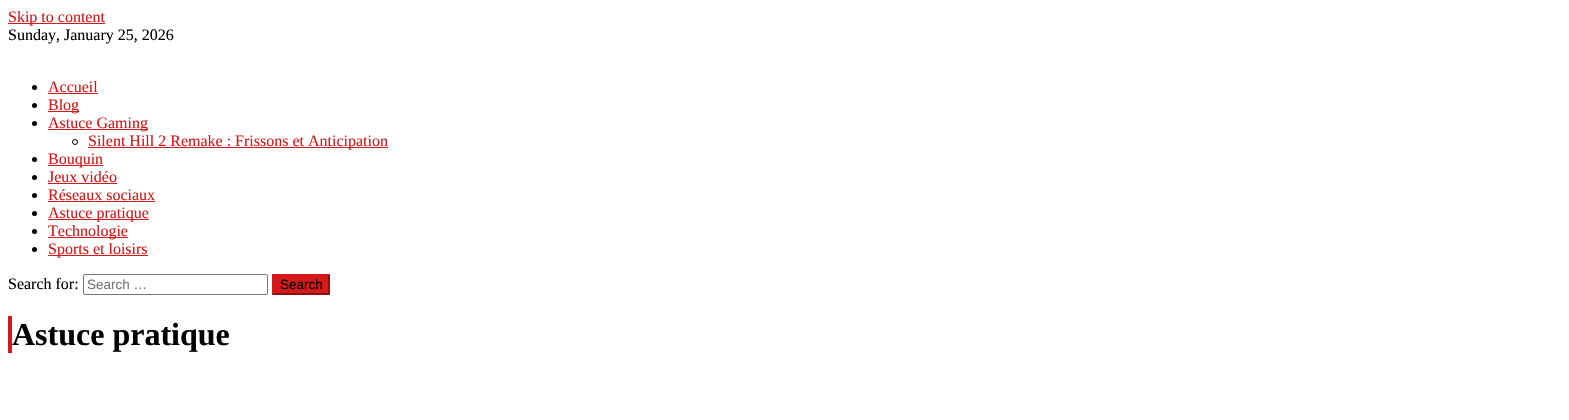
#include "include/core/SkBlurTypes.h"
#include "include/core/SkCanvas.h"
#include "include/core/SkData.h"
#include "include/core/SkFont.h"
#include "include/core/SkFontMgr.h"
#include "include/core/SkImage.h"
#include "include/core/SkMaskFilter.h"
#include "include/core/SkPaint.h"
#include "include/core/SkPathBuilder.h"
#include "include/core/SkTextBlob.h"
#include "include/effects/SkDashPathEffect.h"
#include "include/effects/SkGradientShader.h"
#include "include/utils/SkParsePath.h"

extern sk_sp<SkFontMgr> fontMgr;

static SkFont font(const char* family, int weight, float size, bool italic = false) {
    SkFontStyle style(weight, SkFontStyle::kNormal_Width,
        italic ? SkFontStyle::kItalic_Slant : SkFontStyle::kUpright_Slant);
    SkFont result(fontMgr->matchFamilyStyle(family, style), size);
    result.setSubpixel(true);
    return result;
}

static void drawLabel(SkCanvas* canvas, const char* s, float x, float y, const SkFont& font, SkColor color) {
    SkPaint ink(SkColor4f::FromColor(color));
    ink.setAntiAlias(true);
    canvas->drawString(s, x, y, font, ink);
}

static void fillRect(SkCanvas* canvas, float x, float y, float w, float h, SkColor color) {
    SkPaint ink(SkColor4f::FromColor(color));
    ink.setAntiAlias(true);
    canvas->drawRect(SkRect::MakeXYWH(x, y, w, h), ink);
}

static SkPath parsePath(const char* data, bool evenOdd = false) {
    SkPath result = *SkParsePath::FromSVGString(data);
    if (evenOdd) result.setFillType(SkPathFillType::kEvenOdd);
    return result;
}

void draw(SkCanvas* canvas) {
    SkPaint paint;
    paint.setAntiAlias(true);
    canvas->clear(0xFFFFFFFF);
    fillRect(canvas, 8, 23, 97, 1, 0xFFD31919);
    SkFont font1 = font("Liberation Serif", 400, 16);
    drawLabel(canvas, "Skip to content", 8, 22, font1, 0xFFD31919);
    drawLabel(canvas, "Sunday, January 25, 2026", 8, 40, font1, 0xFF000000);
    paint.setColor(0xFF000000);
    canvas->drawCircle(34.5f, 87.5f, 2.5f, paint);
    drawLabel(canvas, "Accueil", 48, 92, font1, 0xFFD31919);
    fillRect(canvas, 48, 93, 50, 1, 0xFFD31919);
    canvas->drawCircle(34.5f, 105.5f, 2.5f, paint);
    fillRect(canvas, 48, 111, 31, 1, 0xFFD31919);
    drawLabel(canvas, "Blog", 48, 110, font1, 0xFFD31919);
    canvas->drawCircle(34.5f, 123.5f, 2.5f, paint);
    fillRect(canvas, 48, 129, 100, 1, 0xFFD31919);
    drawLabel(canvas, "Astuce Gaming", 48, 128, font1, 0xFFD31919);
    paint.setStroke(true);
    paint.setStrokeWidth(1);
    canvas->drawCircle(75, 142, 2.5f, paint);
    fillRect(canvas, 88, 147, 300, 1, 0xFFD31919);
    drawLabel(canvas, "Silent Hill 2 Remake : Frissons et Anticipation", 88, 146, font1, 0xFFD31919);
    paint.setStroke(false);
    canvas->drawCircle(34.5f, 159.5f, 2.5f, paint);
    fillRect(canvas, 48, 165, 55, 1, 0xFFD31919);
    drawLabel(canvas, "Bouquin", 48, 164, font1, 0xFFD31919);
    canvas->drawCircle(34.5f, 177.5f, 2.5f, paint);
    drawLabel(canvas, "Jeux vidéo", 48, 182, font1, 0xFFD31919);
    fillRect(canvas, 48, 183, 69, 1, 0xFFD31919);
    canvas->drawCircle(34.5f, 195.5f, 2.5f, paint);
    drawLabel(canvas, "Réseaux sociaux", 48, 200, font1, 0xFFD31919);
    fillRect(canvas, 48, 201, 107, 1, 0xFFD31919);
    canvas->drawCircle(34.5f, 213.5f, 2.5f, paint);
    fillRect(canvas, 48, 219, 101, 1, 0xFFD31919);
    drawLabel(canvas, "Astuce pratique", 48, 218, font1, 0xFFD31919);
    canvas->drawCircle(34.5f, 231.5f, 2.5f, paint);
    fillRect(canvas, 48, 237, 80, 1, 0xFFD31919);
    drawLabel(canvas, "Technologie", 48, 236, font1, 0xFFD31919);
    canvas->drawCircle(34.5f, 249.5f, 2.5f, paint);
    fillRect(canvas, 48, 255, 100, 1, 0xFFD31919);
    drawLabel(canvas, "Sports et loisirs", 48, 254, font1, 0xFFD31919);
    drawLabel(canvas, "Search for:", 8, 289, font1, 0xFF000000);
    paint.setStroke(true);
    paint.setColor(0xFF767676);
    canvas->drawRoundRect(SkRect::MakeXYWH(83.5f, 274.5f, 184, 20), 1.5f, 1.5f, paint);
    SkFont font2 = font("Liberation Sans", 400, 13.5f);
    drawLabel(canvas, "Search …", 87, 289, font2, 0xFF757575);
    fillRect(canvas, 272, 274, 58, 21, 0xFFD31919);
    paint.setStroke(false);
    paint.setColor(0xFF8D1111);
    canvas->drawPath(parsePath("M330 274V295L328 293V276Z"), paint);
    canvas->drawPath(parsePath("M330 295H272L274 293H328Z"), paint);
    paint.setColor(0xFFD31919);
    canvas->drawPath(parsePath("M272 295V274L274 276V293Z"), paint);
    drawLabel(canvas, "Search", 280, 289, font2, 0xFF000000);
    fillRect(canvas, 8, 316, 4, 37, 0xFFD31919);
    SkFont font3 = font("Liberation Serif", 700, 32);
    drawLabel(canvas, "Astuce pratique", 12, 345, font3, 0xFF000000);
}
